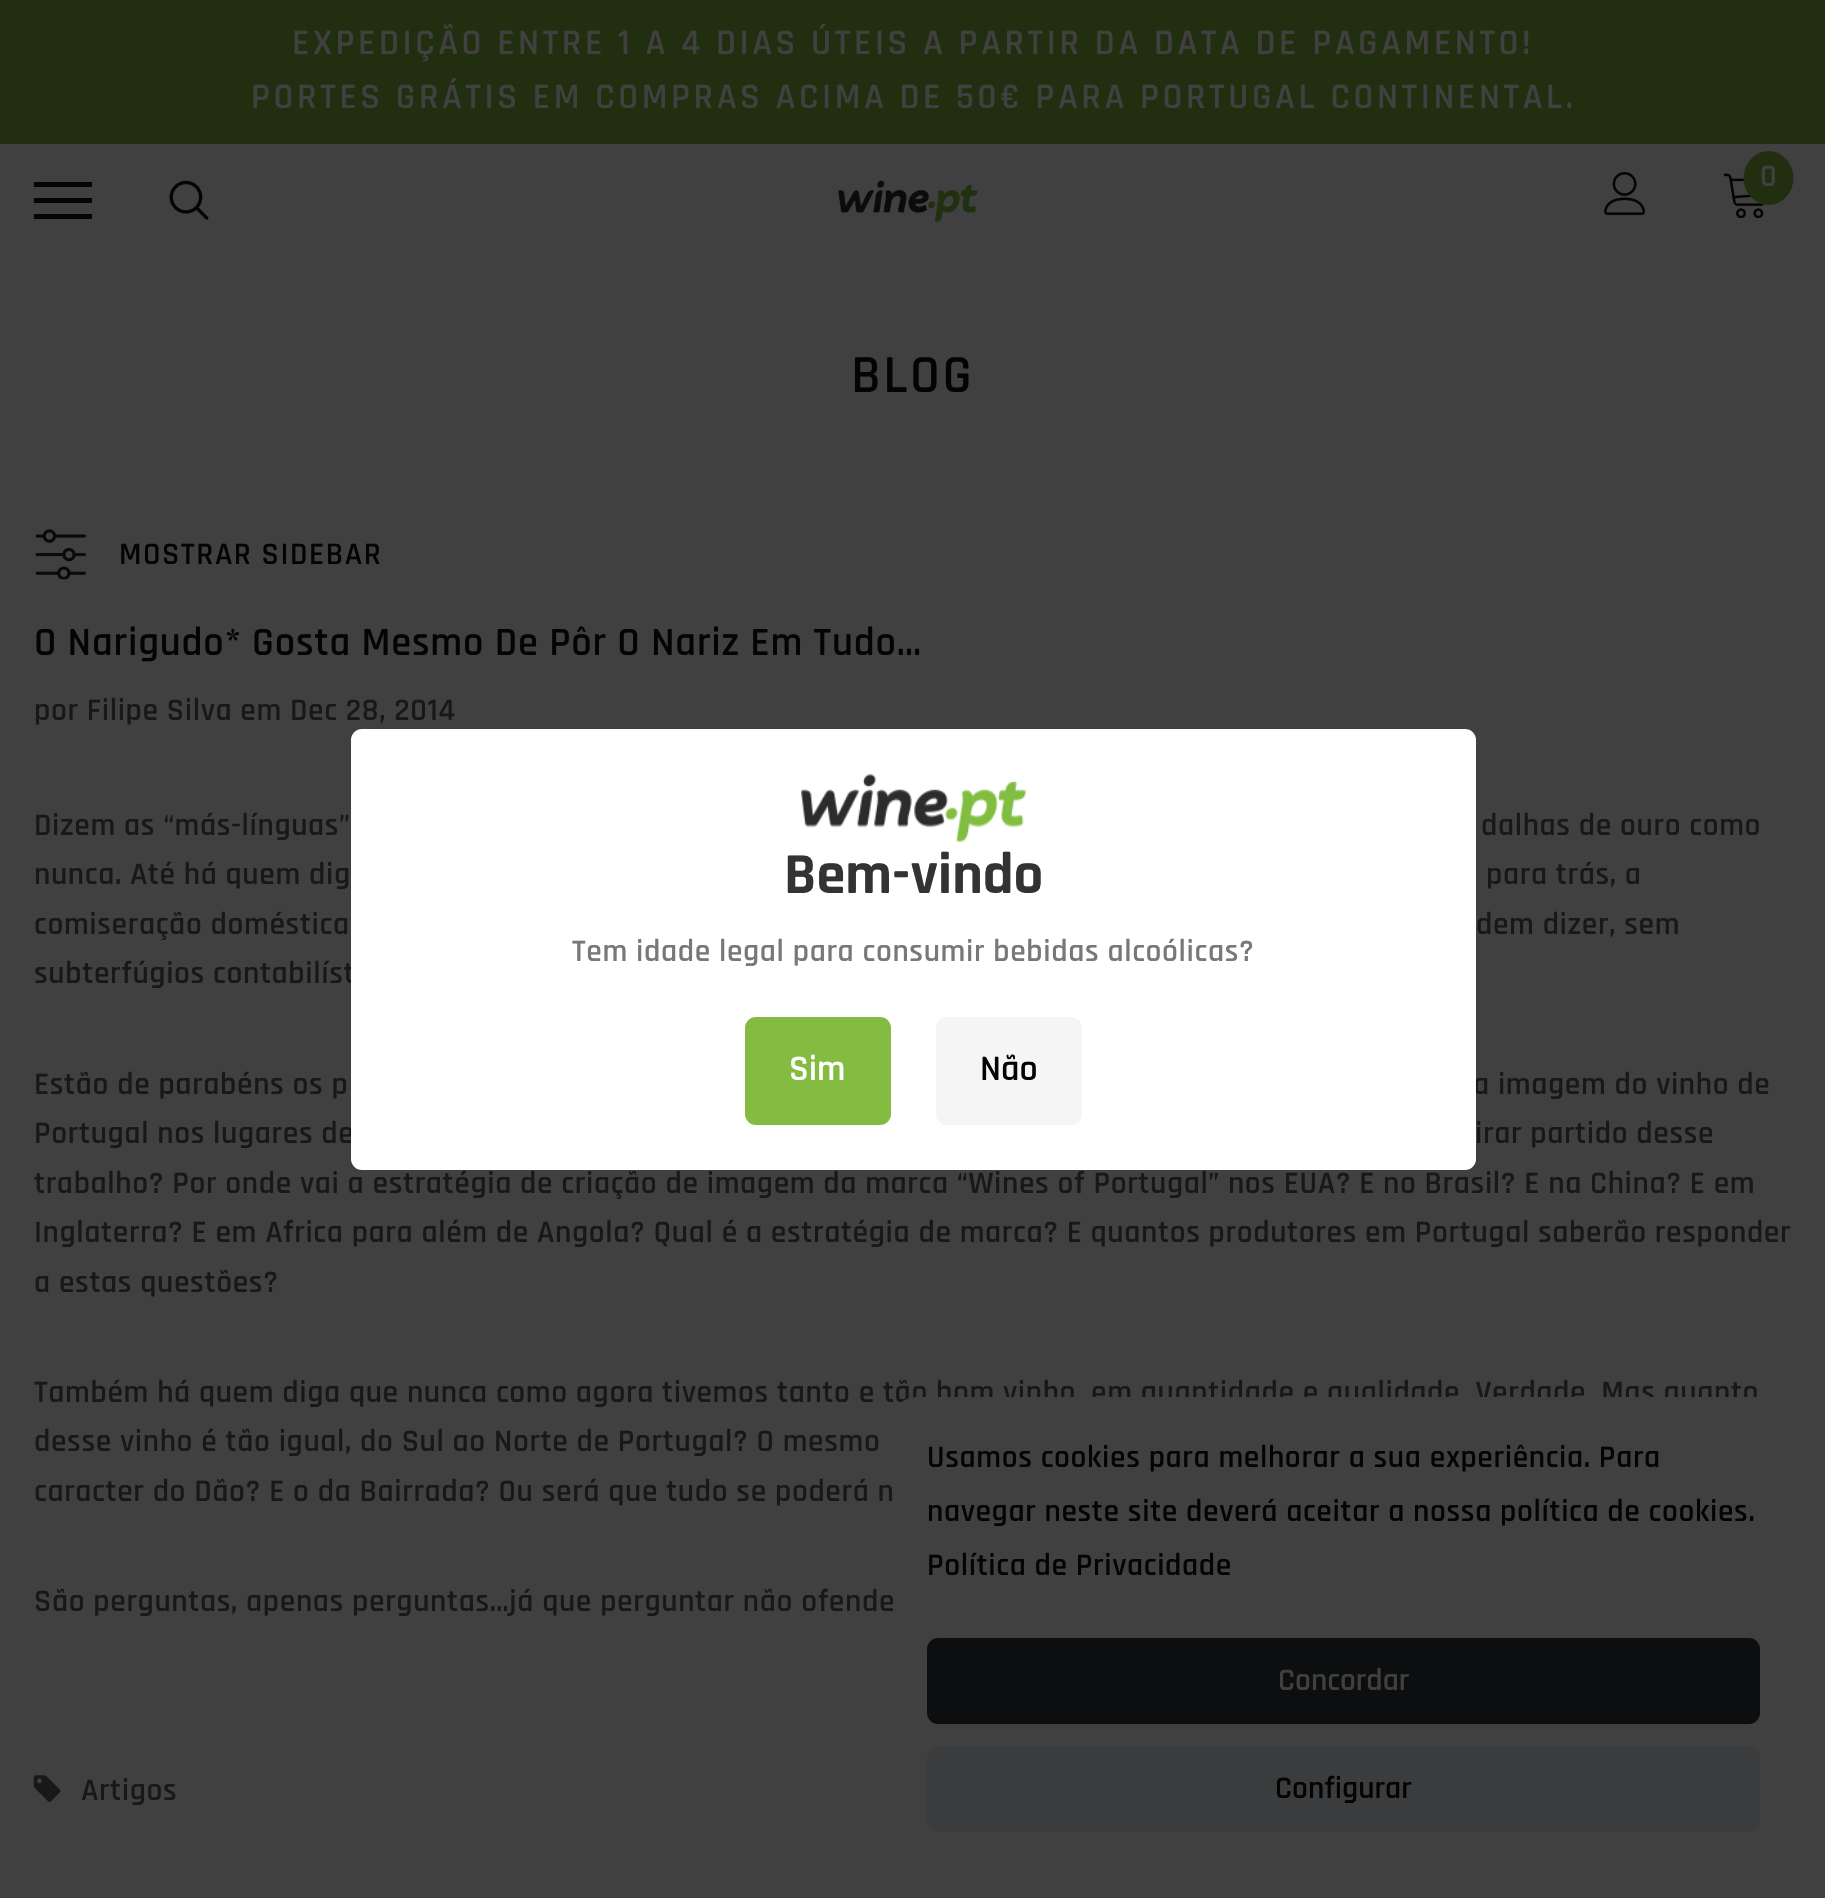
#include "include/core/SkBlurTypes.h"
#include "include/core/SkCanvas.h"
#include "include/core/SkData.h"
#include "include/core/SkFont.h"
#include "include/core/SkFontMgr.h"
#include "include/core/SkImage.h"
#include "include/core/SkMaskFilter.h"
#include "include/core/SkPaint.h"
#include "include/core/SkPathBuilder.h"
#include "include/core/SkTextBlob.h"
#include "include/effects/SkDashPathEffect.h"
#include "include/effects/SkGradientShader.h"
#include "include/utils/SkParsePath.h"

extern sk_sp<SkFontMgr> fontMgr;

static SkFont font(const char* family, int weight, float size, bool italic = false) {
    SkFontStyle style(weight, SkFontStyle::kNormal_Width,
        italic ? SkFontStyle::kItalic_Slant : SkFontStyle::kUpright_Slant);
    SkFont result(fontMgr->matchFamilyStyle(family, style), size);
    result.setSubpixel(true);
    return result;
}

static void drawLabel(SkCanvas* canvas, const char* s, float x, float y, const SkFont& font, SkColor color) {
    SkPaint ink(SkColor4f::FromColor(color));
    ink.setAntiAlias(true);
    canvas->drawString(s, x, y, font, ink);
}

static void drawTracked(SkCanvas* canvas, const char* s, float x, float y, const SkFont& font, const SkPaint& ink, float letter, float word) {
    std::vector<SkGlyphID> glyphs(font.countText(s, strlen(s), SkTextEncoding::kUTF8));
    std::vector<float> xs(glyphs.size());
    font.textToGlyphs(s, strlen(s), SkTextEncoding::kUTF8, glyphs);
    font.getXPos(glyphs, xs, x);
    float extra = 0;
    for (size_t i = 0; i < glyphs.size(); i++) {
        xs[i] += extra;
        extra += letter + word * (glyphs[i] == font.unicharToGlyph(' '));
    }
    canvas->drawTextBlob(SkTextBlob::MakeFromPosHGlyphs(glyphs, xs, y, font), 0, 0, ink);
}

static void fillRect(SkCanvas* canvas, float x, float y, float w, float h, SkColor color) {
    SkPaint ink(SkColor4f::FromColor(color));
    ink.setAntiAlias(true);
    canvas->drawRect(SkRect::MakeXYWH(x, y, w, h), ink);
}

static void fillRRect(SkCanvas* canvas, float x, float y, float w, float h, float radius, SkColor color) {
    SkPaint ink(SkColor4f::FromColor(color));
    ink.setAntiAlias(true);
    canvas->drawRoundRect(SkRect::MakeXYWH(x, y, w, h), radius, radius, ink);
}

static void drawPhoto(SkCanvas* canvas, const char* path, float x, float y, float w, float h) {
    auto image = SkImages::DeferredFromEncodedData(SkData::MakeFromFileName(path));
    canvas->drawImageRect(image, SkRect::MakeXYWH(x, y, w, h), SkSamplingOptions());
}

void draw(SkCanvas* canvas) {
    SkPaint paint;
    paint.setAntiAlias(true);
    canvas->clear(0xFF404040);
    fillRect(canvas, 0, 0, 1825, 144, 0xFF212F10);
    SkFont font1 = font("Rajdhani", 600, 36);
    paint.setColor(0xFF404040);
    drawTracked(canvas, "EXPEDIÇÃO ENTRE 1 A 4 DIAS ÚTEIS A PARTIR DA DATA DE PAGAMENTO!", 292, 54, font1, paint, 3.6f, 0);
    drawTracked(canvas, "PORTES GRÁTIS EM COMPRAS ACIMA DE 50€ PARA PORTUGAL CONTINENTAL.", 251, 108, font1, paint, 3.6f, 0);
    drawPhoto(canvas, "assets/img1.png", 1604, 171, 42, 45);
    drawPhoto(canvas, "assets/img2.png", 1723, 173, 41, 45);
    paint.setColor(0xFF212F10);
    canvas->drawOval(SkRect::MakeXYWH(1743.5f, 151, 50, 54), paint);
    SkFont font2 = font("Rajdhani", 600, 31.5f);
    paint.setColor(0xFF404040);
    drawTracked(canvas, "0", 1760, 186, font2, paint, 0.63f, 0);
    fillRect(canvas, 34, 198, 58, 5, 0xFF040404);
    fillRect(canvas, 34, 182, 58, 5, 0xFF040404);
    fillRect(canvas, 34, 214, 58, 5, 0xFF040404);
    drawPhoto(canvas, "assets/img3.png", 169, 180, 40, 40);
    drawPhoto(canvas, "assets/img4.png", 838, 180, 140, 43);
    SkFont font3 = font("Rajdhani", 600, 54);
    paint.setColor(0xFF040404);
    drawTracked(canvas, "BLOG", 851, 392, font3, paint, 2.5f, 0);
    drawPhoto(canvas, "assets/img5.png", 35, 529, 51, 51);
    drawTracked(canvas, "MOSTRAR SIDEBAR", 119, 564, font2, paint, 1.6f, 0);
    SkFont font4 = font("Rajdhani", 600, 40.5f);
    drawTracked(canvas, "O Narigudo* Gosta Mesmo De Pôr O Nariz Em Tudo…", 34, 655, font4, paint, 0.8f, 0);
    paint.setColor(0xFF181818);
    drawTracked(canvas, "por Filipe Silva em Dec 28, 2014", 34, 720, font2, paint, 0.63f, 0);
    drawTracked(canvas, "Dizem as “más-línguas”", 34, 835, font2, paint, 0.63f, 0);
    drawTracked(canvas, "dalhas de ouro como", 1481, 835, font2, paint, 0.63f, 0);
    drawTracked(canvas, "nunca. Até há quem dig", 34, 884, font2, paint, 0.63f, 0);
    drawTracked(canvas, "para trás, a", 1486, 884, font2, paint, 0.63f, 0);
    drawTracked(canvas, "comiseração doméstica", 34, 934, font2, paint, 0.63f, 0);
    drawTracked(canvas, "dem dizer, sem", 1476, 934, font2, paint, 0.63f, 0);
    drawTracked(canvas, "subterfúgios contabilíst", 34, 983, font2, paint, 0.63f, 0);
    drawTracked(canvas, "Estão de parabéns os p", 34, 1094, font2, paint, 0.63f, 0);
    drawTracked(canvas, "a imagem do vinho de", 1473, 1094, font2, paint, 0.63f, 0);
    drawTracked(canvas, "Portugal nos lugares de", 34, 1143, font2, paint, 0.63f, 0);
    drawTracked(canvas, "irar partido desse", 1475, 1143, font2, paint, 0.63f, 0);
    drawTracked(canvas, "trabalho? Por onde vai a estratégia de criação de imagem da marca “Wines of Portugal” nos EUA? E no Brasil? E na China? E em", 34, 1193, font2, paint, 0.63f, 0);
    drawTracked(canvas, "Inglaterra? E em Africa para além de Angola? Qual é a estratégia de marca? E quantos produtores em Portugal saberão responder", 34, 1242, font2, paint, 0.63f, 0);
    drawTracked(canvas, "a estas questões?", 34, 1292, font2, paint, 0.63f, 0);
    drawTracked(canvas, "Também há quem diga que nunca como agora tivemos tanto e tão bom vinho, em quantidade e qualidade. Verdade. Mas quanto", 34, 1402, font2, paint, 0.63f, 0);
    drawTracked(canvas, "desse vinho é tão igual, do Sul ao Norte de Portugal? O mesmo", 34, 1451, font2, paint, 0.63f, 0);
    drawTracked(canvas, "caracter do Dão? E o da Bairrada? Ou será que tudo se poderá n", 34, 1501, font2, paint, 0.63f, 0);
    drawTracked(canvas, "São perguntas, apenas perguntas…já que perguntar não ofende", 34, 1611, font2, paint, 0.63f, 0);
    drawPhoto(canvas, "assets/img6.png", 33, 1775, 28, 27);
    drawTracked(canvas, "Artigos", 81, 1800, font2, paint, 0.63f, 0);
    fillRRect(canvas, 351, 729, 1125, 441, 11, 0xFFFFFFFF);
    drawPhoto(canvas, "assets/img7.png", 801, 774, 225, 68);
    SkFont font5 = font("Rajdhani", 700, 58.5f);
    drawLabel(canvas, "Bem-vindo", 784, 893, font5, 0xFF333333);
    paint.setColor(0xFF787878);
    drawTracked(canvas, "Tem idade legal para consumir bebidas alcoólicas?", 572, 961, font2, paint, 0.63f, 0);
    fillRRect(canvas, 745, 1017, 146, 108, 11, 0xFF83BC40);
    drawLabel(canvas, "Sim", 789, 1080, font1, 0xFFFFFFFF);
    fillRRect(canvas, 936, 1017, 146, 108, 11, 0xFFF5F5F5);
    drawLabel(canvas, "Não", 980, 1080, font1, 0xFF040404);
    fillRRect(canvas, 893, 1397, 900, 468, 23, 0xFF404040);
    paint.setColor(0xFF040404);
    drawTracked(canvas, "Usamos cookies para melhorar a sua experiência. Para", 927, 1467, font2, paint, 0.63f, 0);
    drawTracked(canvas, "navegar neste site deverá aceitar a nossa política de cookies.", 927, 1521, font2, paint, 0.63f, 0);
    drawTracked(canvas, "Política de Privacidade", 927, 1575, font2, paint, 0.63f, 0);
    fillRRect(canvas, 927, 1638, 833, 86, 11, 0xFF0C0E0F);
    drawLabel(canvas, "Concordar", 1278, 1690, font2, 0xFF404040);
    fillRRect(canvas, 927, 1746, 833, 86, 11, 0xFF3B3C3D);
    drawLabel(canvas, "Configurar", 1275, 1798, font2, 0xFF040404);
}
